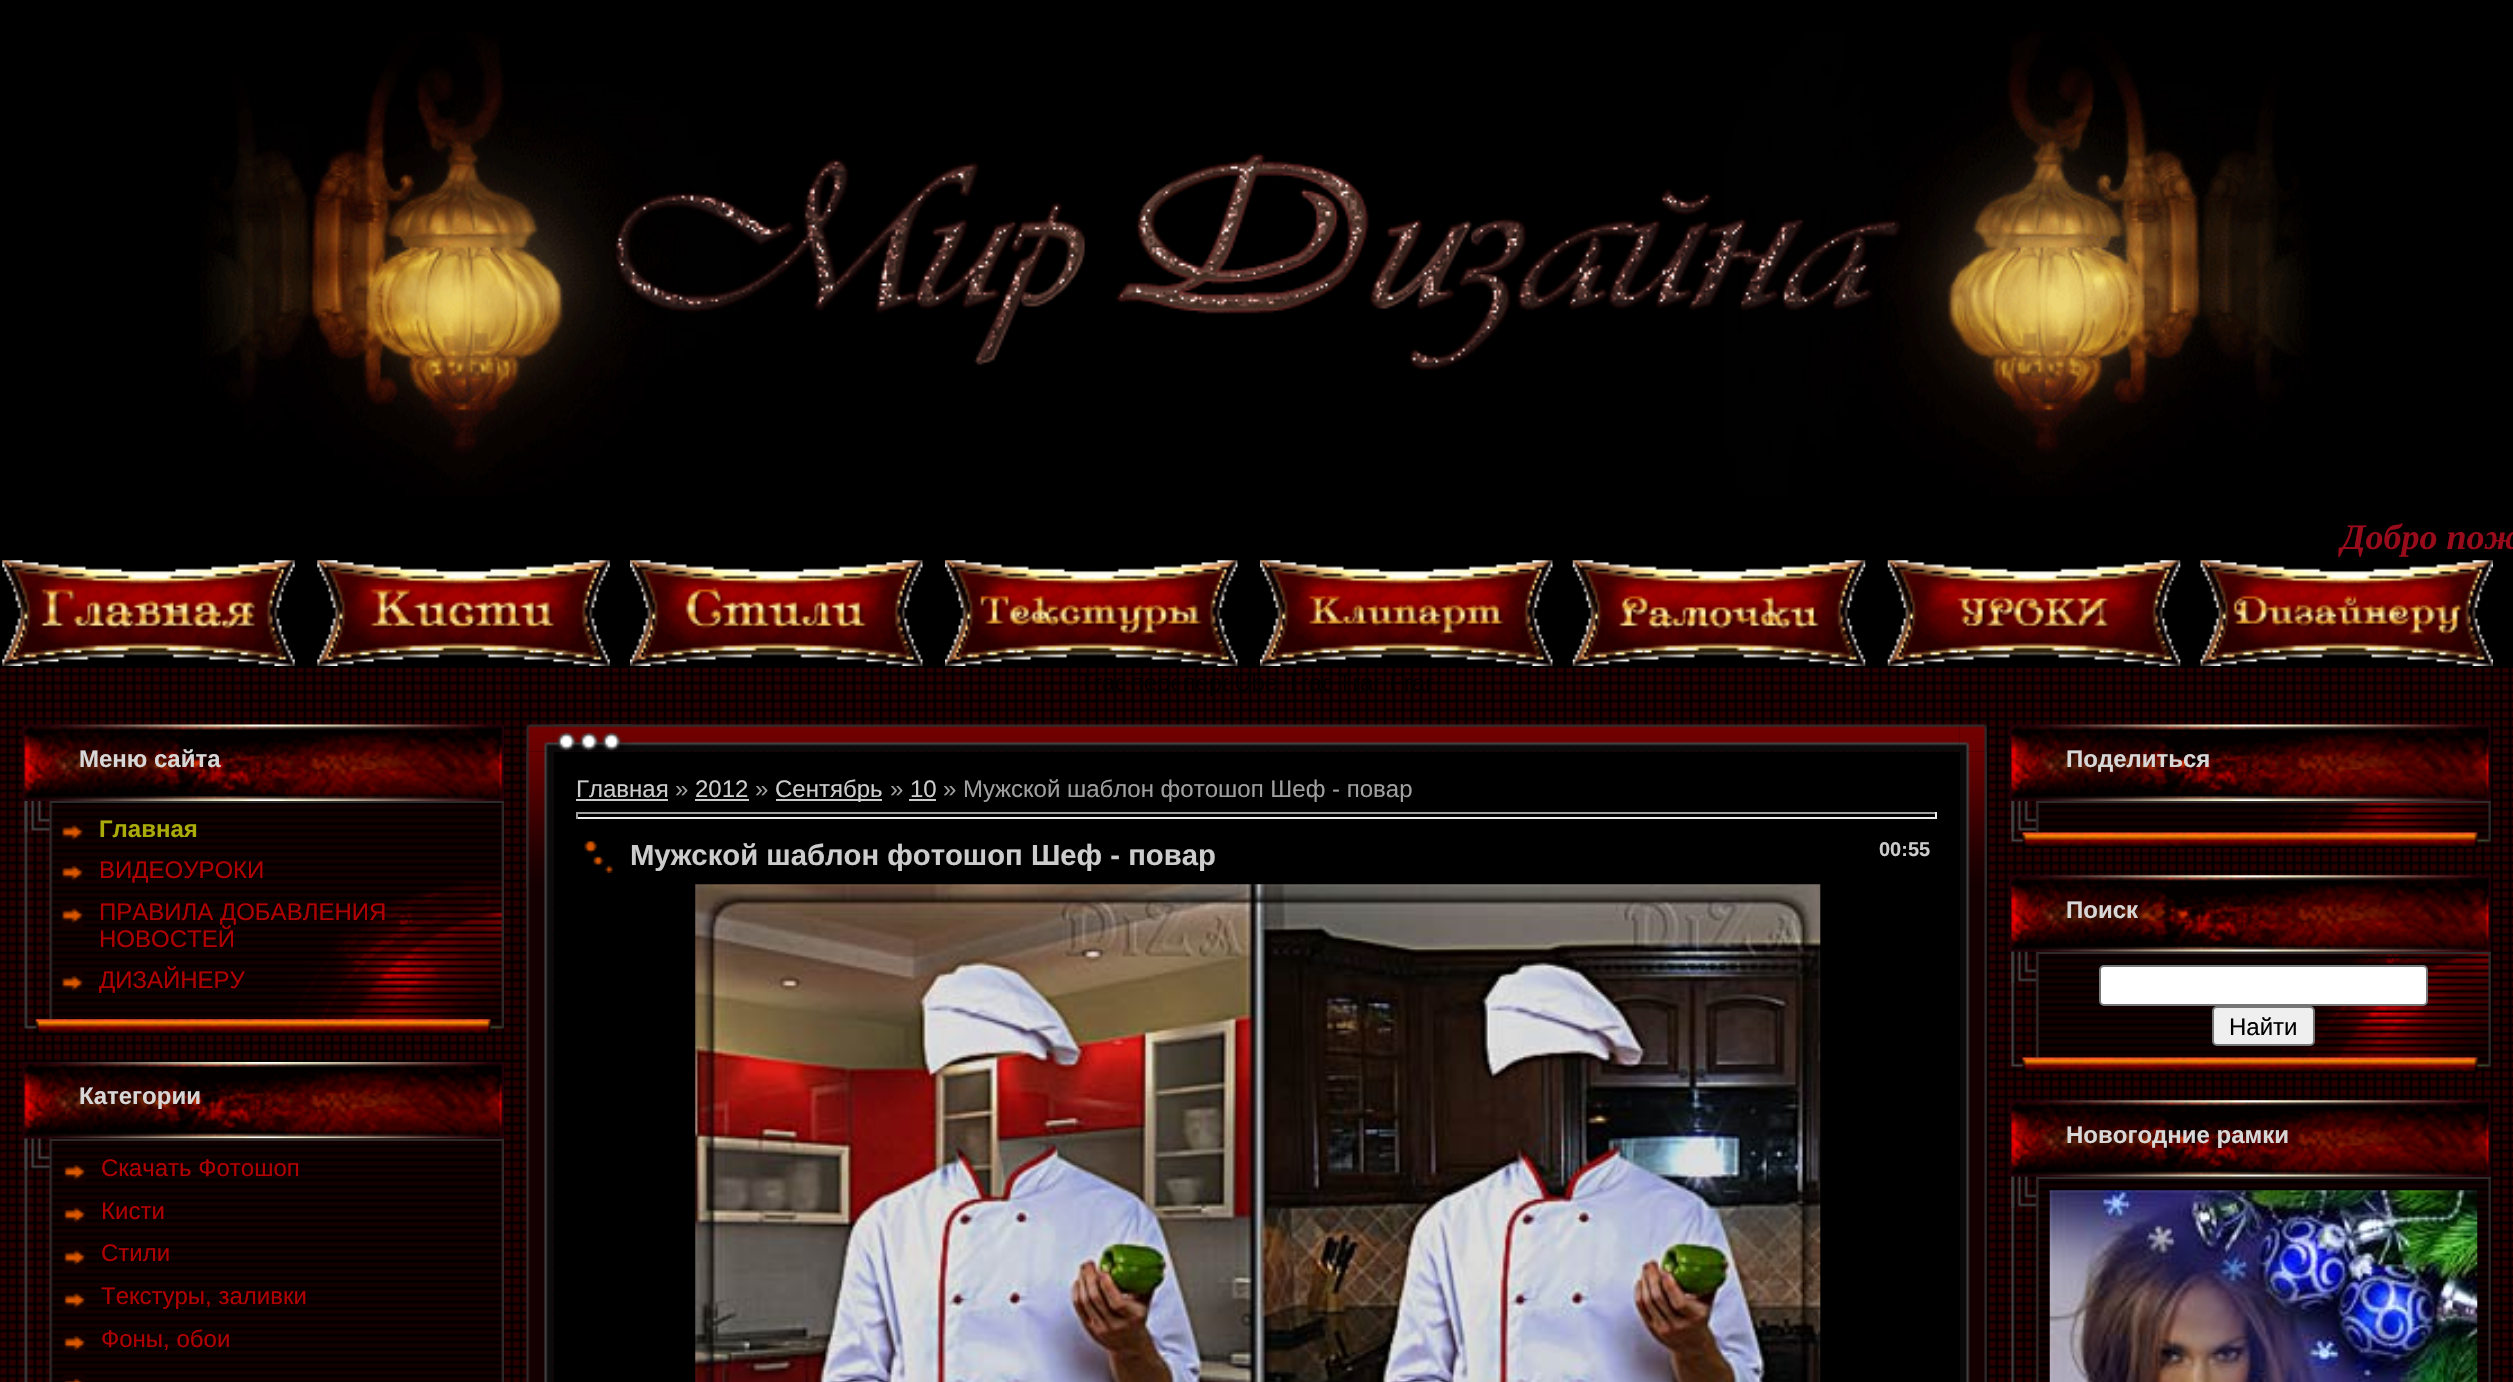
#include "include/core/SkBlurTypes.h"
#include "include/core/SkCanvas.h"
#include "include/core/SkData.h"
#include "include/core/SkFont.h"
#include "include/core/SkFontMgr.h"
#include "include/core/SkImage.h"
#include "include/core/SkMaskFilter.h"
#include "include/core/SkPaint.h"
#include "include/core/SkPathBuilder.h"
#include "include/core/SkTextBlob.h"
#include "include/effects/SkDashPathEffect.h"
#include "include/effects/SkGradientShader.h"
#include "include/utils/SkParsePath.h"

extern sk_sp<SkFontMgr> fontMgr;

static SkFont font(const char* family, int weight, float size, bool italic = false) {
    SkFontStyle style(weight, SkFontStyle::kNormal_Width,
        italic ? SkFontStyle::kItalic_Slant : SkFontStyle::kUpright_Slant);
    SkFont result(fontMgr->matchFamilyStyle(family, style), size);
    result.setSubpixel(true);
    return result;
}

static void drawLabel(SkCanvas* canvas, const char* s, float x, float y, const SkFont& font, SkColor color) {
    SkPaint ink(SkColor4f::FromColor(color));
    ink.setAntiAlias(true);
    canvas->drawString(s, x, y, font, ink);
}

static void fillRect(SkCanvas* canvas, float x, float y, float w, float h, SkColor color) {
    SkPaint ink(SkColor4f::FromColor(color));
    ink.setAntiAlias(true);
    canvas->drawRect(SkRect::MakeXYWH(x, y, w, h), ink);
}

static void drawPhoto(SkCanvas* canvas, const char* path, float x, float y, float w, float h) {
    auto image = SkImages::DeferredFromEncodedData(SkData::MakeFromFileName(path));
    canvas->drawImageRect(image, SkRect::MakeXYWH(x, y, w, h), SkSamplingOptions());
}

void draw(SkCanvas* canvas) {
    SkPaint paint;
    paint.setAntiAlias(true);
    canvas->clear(0xFFFFFFFF);
    drawPhoto(canvas, "assets/img1.png", 0, 668, 2513, 714);
    fillRect(canvas, 0, 0, 2513, 668, 0xFF000000);
    drawPhoto(canvas, "assets/img2.png", 199, 31, 2112, 465);
    SkFont font1 = font("Liberation Serif", 700, 36, true);
    drawLabel(canvas, "Добро пож", 2341, 549, font1, 0xFF980B1A);
    drawPhoto(canvas, "assets/img3.png", 2, 560, 293, 106);
    drawPhoto(canvas, "assets/img4.png", 317, 560, 293, 106);
    drawPhoto(canvas, "assets/img5.png", 630, 560, 293, 106);
    drawPhoto(canvas, "assets/img6.png", 945, 560, 293, 106);
    drawPhoto(canvas, "assets/img7.png", 1260, 560, 293, 106);
    drawPhoto(canvas, "assets/img8.png", 1572, 560, 294, 106);
    drawPhoto(canvas, "assets/img9.png", 1887, 560, 294, 106);
    drawPhoto(canvas, "assets/img10.png", 2200, 560, 293, 106);
    drawPhoto(canvas, "assets/img11.png", 1080, 674, 45, 28);
    drawPhoto(canvas, "assets/img12.png", 1132, 678, 45, 24);
    drawPhoto(canvas, "assets/img13.png", 1184, 678, 45, 24);
    drawPhoto(canvas, "assets/img14.png", 1236, 673, 45, 29);
    drawPhoto(canvas, "assets/img15.png", 1287, 674, 43, 28);
    drawPhoto(canvas, "assets/img16.png", 1338, 674, 44, 28);
    drawPhoto(canvas, "assets/img17.png", 1391, 674, 43, 17);
    drawPhoto(canvas, "assets/img18.png", 22, 724, 482, 77);
    SkFont font2 = font("Liberation Sans", 700, 24);
    drawLabel(canvas, "Меню сайта", 79, 767, font2, 0xFFD7D7D7);
    drawPhoto(canvas, "assets/img19.png", 24, 801, 4, 219);
    drawPhoto(canvas, "assets/img21.png", 49, 801, 455, 219);
    drawPhoto(canvas, "assets/img20.png", 24, 801, 26, 32);
    fillRect(canvas, 50, 801, 454, 2, 0xFF2F2A2A);
    drawPhoto(canvas, "assets/img22.png", 61, 822, 23, 18);
    drawLabel(canvas, "Главная", 99, 837, font2, 0xFFAAAC0A);
    drawPhoto(canvas, "assets/img23.png", 60, 863, 24, 18);
    SkFont font3 = font("Liberation Sans", 400, 24);
    drawLabel(canvas, "ВИДЕОУРОКИ", 99, 878, font3, 0xFFAF0101);
    drawPhoto(canvas, "assets/img24.png", 60, 904, 24, 23);
    drawLabel(canvas, "ПРАВИЛА ДОБАВЛЕНИЯ", 99, 920, font3, 0xFFAF0101);
    drawLabel(canvas, "НОВОСТЕЙ", 99, 947, font3, 0xFFAF0101);
    drawPhoto(canvas, "assets/img25.png", 60, 972, 24, 19);
    drawLabel(canvas, "ДИЗАЙНЕРУ", 99, 988, font3, 0xFFAF0101);
    drawPhoto(canvas, "assets/img26.png", 24, 1019, 480, 16);
    drawPhoto(canvas, "assets/img27.png", 22, 1062, 482, 77);
    drawLabel(canvas, "Категории", 79, 1104, font2, 0xFFD7D7D7);
    drawPhoto(canvas, "assets/img28.png", 24, 1138, 4, 244);
    drawPhoto(canvas, "assets/img30.png", 49, 1138, 455, 244);
    drawPhoto(canvas, "assets/img29.png", 24, 1138, 26, 32);
    fillRect(canvas, 50, 1139, 454, 2, 0xFF2F2A2A);
    drawPhoto(canvas, "assets/img31.png", 63, 1161, 23, 21);
    drawLabel(canvas, "Скачать Фотошоп", 101, 1176, font3, 0xFFAF0101);
    drawPhoto(canvas, "assets/img32.png", 63, 1205, 23, 18);
    drawLabel(canvas, "Кисти", 101, 1219, font3, 0xFFAF0101);
    drawPhoto(canvas, "assets/img33.png", 63, 1246, 23, 23);
    drawLabel(canvas, "Стили", 101, 1261, font3, 0xFFAF0101);
    drawPhoto(canvas, "assets/img34.png", 63, 1289, 23, 21);
    drawLabel(canvas, "Текстуры, заливки", 101, 1304, font3, 0xFFAF0101);
    drawPhoto(canvas, "assets/img35.png", 63, 1334, 23, 21);
    drawLabel(canvas, "Фоны, обои", 101, 1347, font3, 0xFFAF0101);
    drawPhoto(canvas, "assets/img36.png", 63, 1375, 23, 7);
    drawPhoto(canvas, "assets/img38.png", 553, 724, 1407, 28);
    drawPhoto(canvas, "assets/img41.png", 526, 751, 28, 631);
    drawPhoto(canvas, "assets/img37.png", 526, 724, 28, 28);
    drawPhoto(canvas, "assets/img39.png", 553, 724, 79, 28);
    drawPhoto(canvas, "assets/img45.png", 1960, 751, 27, 631);
    drawPhoto(canvas, "assets/img40.png", 1959, 724, 28, 28);
    drawPhoto(canvas, "assets/img42.png", 526, 751, 28, 136);
    fillRect(canvas, 554, 752, 1406, 630, 0xFF000000);
    drawLabel(canvas, "Главная", 576, 797, font3, 0xFFCCCCCC);
    fillRect(canvas, 576, 799, 92, 2, 0xFFCCCCCC);
    drawLabel(canvas, "»", 675, 797, font3, 0xFF9F9F9F);
    drawLabel(canvas, "2012", 695, 797, font3, 0xFFCCCCCC);
    fillRect(canvas, 695, 799, 54, 2, 0xFFCCCCCC);
    drawLabel(canvas, "»", 755, 797, font3, 0xFF9F9F9F);
    fillRect(canvas, 776, 799, 106, 2, 0xFFCCCCCC);
    drawLabel(canvas, "Сентябрь", 775, 797, font3, 0xFFCCCCCC);
    drawLabel(canvas, "»", 890, 797, font3, 0xFF9F9F9F);
    drawLabel(canvas, "10", 910, 797, font3, 0xFFCCCCCC);
    fillRect(canvas, 909, 799, 27, 2, 0xFFCCCCCC);
    drawLabel(canvas, "» Мужской шаблон фотошоп Шеф - повар", 943, 797, font3, 0xFF9F9F9F);
    fillRect(canvas, 576, 812, 1361, 2, 0xFF9F9F9F);
    fillRect(canvas, 1935, 812, 2, 7, 0xFFEEEEEE);
    fillRect(canvas, 576, 817, 1361, 2, 0xFFEEEEEE);
    fillRect(canvas, 576, 812, 2, 7, 0xFF9F9F9F);
    drawPhoto(canvas, "assets/img43.png", 584, 841, 29, 32);
    SkFont font4 = font("Liberation Sans", 700, 29.25f);
    drawLabel(canvas, "Мужской шаблон фотошоп Шеф - повар", 630, 865, font4, 0xFFCCCCCC);
    SkFont font5 = font("Liberation Sans", 700, 20);
    drawLabel(canvas, "00:55", 1879, 856, font5, 0xFFCCCCCC);
    drawPhoto(canvas, "assets/img44.png", 695, 884, 1126, 498);
    drawPhoto(canvas, "assets/img46.png", 1966, 751, 21, 135);
    drawPhoto(canvas, "assets/img47.png", 2009, 724, 482, 77);
    drawLabel(canvas, "Поделиться", 2066, 767, font2, 0xFFD7D7D7);
    drawPhoto(canvas, "assets/img48.png", 2011, 801, 4, 32);
    drawPhoto(canvas, "assets/img50.png", 2036, 803, 455, 30);
    fillRect(canvas, 2036, 801, 455, 2, 0xFF2F2A2A);
    drawPhoto(canvas, "assets/img49.png", 2011, 801, 26, 32);
    drawPhoto(canvas, "assets/img51.png", 2011, 832, 480, 17);
    drawPhoto(canvas, "assets/img52.png", 2009, 875, 482, 77);
    drawLabel(canvas, "Поиск", 2066, 918, font2, 0xFFD7D7D7);
    drawPhoto(canvas, "assets/img53.png", 2011, 951, 4, 107);
    drawPhoto(canvas, "assets/img55.png", 2036, 951, 455, 107);
    fillRect(canvas, 2036, 952, 455, 2, 0xFF2F2A2A);
    drawPhoto(canvas, "assets/img54.png", 2011, 951, 26, 32);
    paint.setColor(0xFFFFFFFF);
    canvas->drawRoundRect(SkRect::MakeXYWH(2100, 966, 327, 39), 4, 4, paint);
    paint.setStroke(true);
    paint.setStrokeWidth(2);
    paint.setColor(0xFF767676);
    canvas->drawRoundRect(SkRect::MakeXYWH(2100, 966, 327, 39), 4, 4, paint);
    paint.setStroke(false);
    paint.setColor(0xFFEFEFEF);
    canvas->drawRoundRect(SkRect::MakeXYWH(2213, 1007, 101, 38), 4, 4, paint);
    paint.setStroke(true);
    paint.setColor(0xFF767676);
    canvas->drawRoundRect(SkRect::MakeXYWH(2213, 1007, 101, 38), 4, 4, paint);
    drawLabel(canvas, "Найти", 2229, 1035, font3, 0xFF000000);
    drawPhoto(canvas, "assets/img56.png", 2011, 1057, 480, 17);
    drawPhoto(canvas, "assets/img57.png", 2009, 1100, 482, 77);
    drawLabel(canvas, "Новогодние рамки", 2066, 1143, font2, 0xFFD7D7D7);
    drawPhoto(canvas, "assets/img58.png", 2011, 1176, 4, 206);
    drawPhoto(canvas, "assets/img59.png", 2036, 1176, 455, 206);
    fillRect(canvas, 2036, 1177, 455, 2, 0xFF2F2A2A);
    drawPhoto(canvas, "assets/img54.png", 2011, 1176, 26, 32);
    drawPhoto(canvas, "assets/img60.png", 2049, 1190, 429, 192);
}
